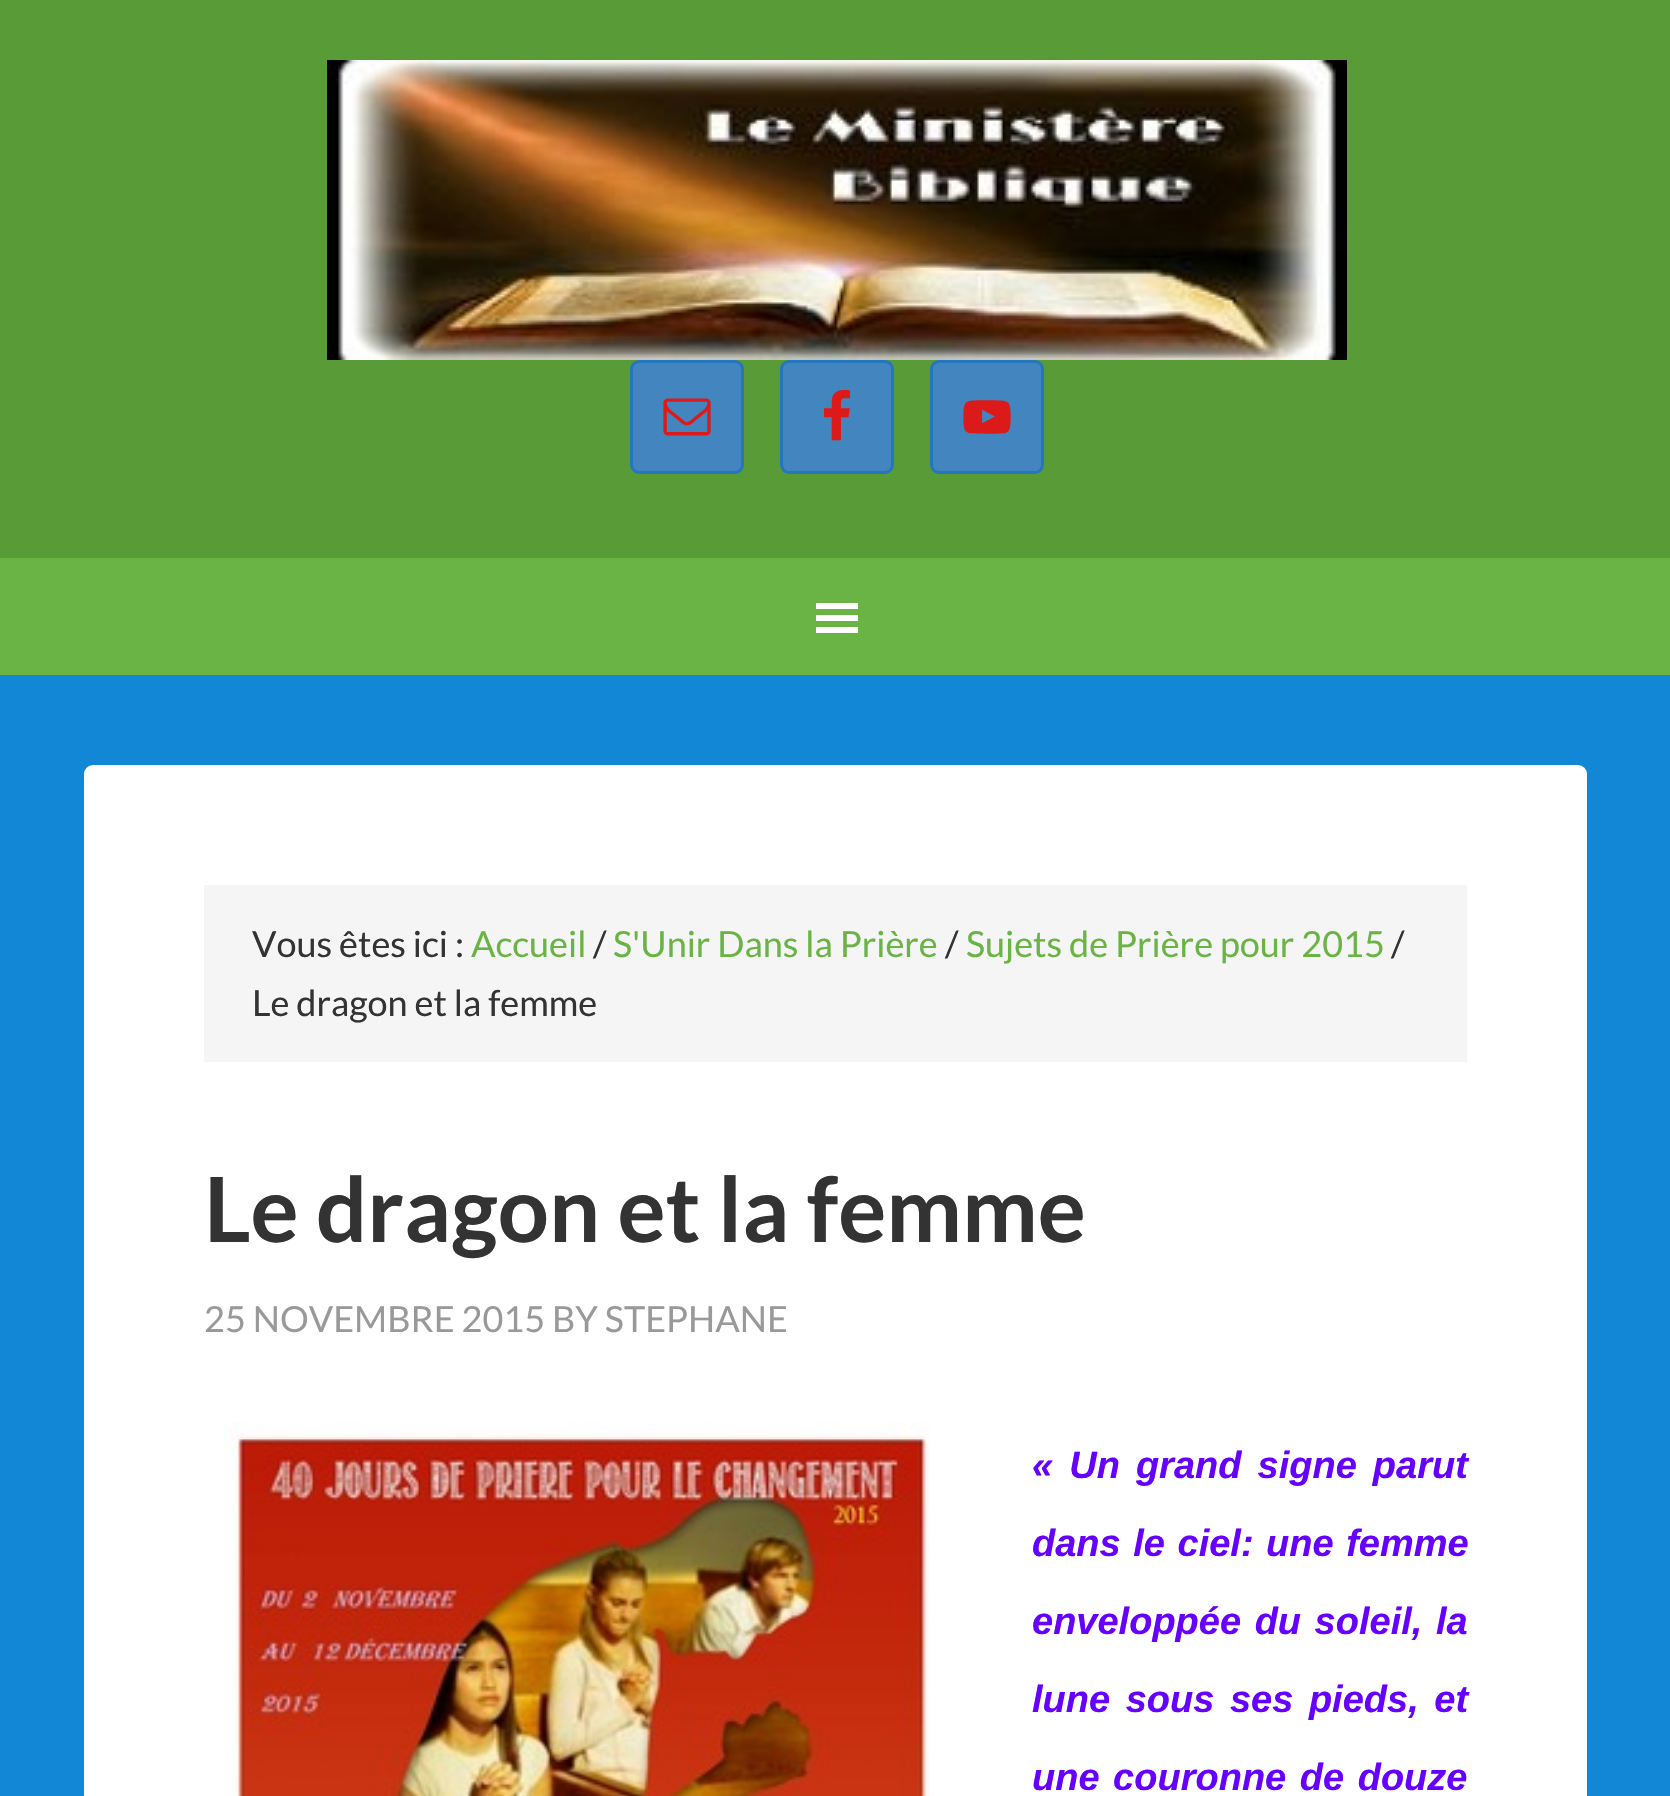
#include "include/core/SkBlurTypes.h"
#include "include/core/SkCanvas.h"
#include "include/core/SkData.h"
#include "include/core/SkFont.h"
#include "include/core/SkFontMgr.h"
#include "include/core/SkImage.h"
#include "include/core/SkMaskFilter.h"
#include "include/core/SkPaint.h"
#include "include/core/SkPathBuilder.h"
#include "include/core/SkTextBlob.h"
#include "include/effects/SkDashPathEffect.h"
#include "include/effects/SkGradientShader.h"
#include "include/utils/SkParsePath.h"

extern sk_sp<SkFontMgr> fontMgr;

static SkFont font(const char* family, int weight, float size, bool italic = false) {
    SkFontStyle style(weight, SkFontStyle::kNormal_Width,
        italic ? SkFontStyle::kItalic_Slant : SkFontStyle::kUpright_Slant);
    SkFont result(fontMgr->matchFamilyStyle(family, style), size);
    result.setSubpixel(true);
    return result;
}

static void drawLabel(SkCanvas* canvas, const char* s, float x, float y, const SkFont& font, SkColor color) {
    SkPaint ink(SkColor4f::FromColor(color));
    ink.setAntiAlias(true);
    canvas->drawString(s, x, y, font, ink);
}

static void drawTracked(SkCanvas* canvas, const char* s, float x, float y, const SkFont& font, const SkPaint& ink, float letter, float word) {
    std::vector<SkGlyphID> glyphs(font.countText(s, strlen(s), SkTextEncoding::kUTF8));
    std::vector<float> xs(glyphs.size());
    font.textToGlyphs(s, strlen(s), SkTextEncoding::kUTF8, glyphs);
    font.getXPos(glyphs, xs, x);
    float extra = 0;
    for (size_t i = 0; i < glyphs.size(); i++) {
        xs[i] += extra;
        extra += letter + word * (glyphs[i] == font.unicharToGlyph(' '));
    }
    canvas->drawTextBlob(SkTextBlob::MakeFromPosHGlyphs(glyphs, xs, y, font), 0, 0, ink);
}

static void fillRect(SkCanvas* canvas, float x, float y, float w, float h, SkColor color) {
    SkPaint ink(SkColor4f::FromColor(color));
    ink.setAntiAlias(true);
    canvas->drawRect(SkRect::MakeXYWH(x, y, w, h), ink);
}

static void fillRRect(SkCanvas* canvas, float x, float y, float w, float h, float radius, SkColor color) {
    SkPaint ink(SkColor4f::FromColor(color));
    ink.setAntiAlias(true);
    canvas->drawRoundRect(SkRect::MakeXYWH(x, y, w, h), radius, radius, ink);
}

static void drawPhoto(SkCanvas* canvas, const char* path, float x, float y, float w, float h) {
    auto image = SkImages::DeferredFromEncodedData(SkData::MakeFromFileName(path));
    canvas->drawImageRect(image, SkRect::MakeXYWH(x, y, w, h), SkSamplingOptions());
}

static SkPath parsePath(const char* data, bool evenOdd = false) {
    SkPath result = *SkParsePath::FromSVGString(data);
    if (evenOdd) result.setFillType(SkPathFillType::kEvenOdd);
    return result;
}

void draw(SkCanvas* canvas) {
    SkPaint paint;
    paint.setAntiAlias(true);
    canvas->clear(0xFF1187D6);
    fillRect(canvas, 0, 0, 1670, 558, 0xFF589B37);
    drawPhoto(canvas, "assets/img1.png", 327, 60, 1020, 300);
    paint.setColor(0xFF4285BF);
    canvas->drawRoundRect(SkRect::MakeXYWH(631.5f, 361.5f, 111, 111), 7.5f, 7.5f, paint);
    paint.setStroke(true);
    paint.setStrokeWidth(3);
    paint.setColor(0xFF2476BF);
    canvas->drawRoundRect(SkRect::MakeXYWH(631.5f, 361.5f, 111, 111), 7.5f, 7.5f, paint);
    drawPhoto(canvas, "assets/img2.png", 663, 398, 48, 38);
    paint.setStroke(false);
    paint.setColor(0xFF4285BF);
    canvas->drawRoundRect(SkRect::MakeXYWH(781.5f, 361.5f, 111, 111), 7.5f, 7.5f, paint);
    paint.setStroke(true);
    paint.setColor(0xFF2476BF);
    canvas->drawRoundRect(SkRect::MakeXYWH(781.5f, 361.5f, 111, 111), 7.5f, 7.5f, paint);
    drawPhoto(canvas, "assets/img3.png", 824, 390, 27, 51);
    paint.setStroke(false);
    paint.setColor(0xFF4285BF);
    canvas->drawRoundRect(SkRect::MakeXYWH(931.5f, 361.5f, 111, 111), 7.5f, 7.5f, paint);
    paint.setStroke(true);
    paint.setColor(0xFF2476BF);
    canvas->drawRoundRect(SkRect::MakeXYWH(931.5f, 361.5f, 111, 111), 7.5f, 7.5f, paint);
    drawPhoto(canvas, "assets/img4.png", 963, 400, 48, 34);
    fillRect(canvas, 0, 558, 1670, 117, 0xFF6AB446);
    paint.setStroke(false);
    paint.setColor(0xFFFFFFFF);
    canvas->drawPath(parsePath("M816 633H858V627H816ZM816 603V609H858V603ZM816 621H858V615H816Z"), paint);
    fillRRect(canvas, 84, 765, 1503, 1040, 9, 0xFFFFFFFF);
    fillRect(canvas, 204, 885, 1263, 177, 0xFFF5F5F5);
    SkFont font1 = font("Lato", 400, 36);
    drawLabel(canvas, "Vous êtes ici :", 252, 957, font1, 0xFF333333);
    drawLabel(canvas, "Accueil", 471, 957, font1, 0xFF6AB446);
    drawLabel(canvas, "/", 593, 957, font1, 0xFF333333);
    drawLabel(canvas, "S'Unir Dans la Prière", 613, 957, font1, 0xFF6AB446);
    drawLabel(canvas, "/", 945, 957, font1, 0xFF333333);
    drawLabel(canvas, "Sujets de Prière pour 2015", 966, 957, font1, 0xFF6AB446);
    drawLabel(canvas, "/", 1391, 957, font1, 0xFF333333);
    drawLabel(canvas, "Le dragon et la femme", 252, 1016, font1, 0xFF333333);
    SkFont font2 = font("Lato", 700, 90);
    drawLabel(canvas, "Le dragon et la femme", 204, 1242, font2, 0xFF333333);
    drawLabel(canvas, "25 NOVEMBRE 2015 BY STEPHANE", 204, 1332, font1, 0xFF999999);
    drawPhoto(canvas, "assets/img5.png", 224, 1422, 706, 374);
    SkFont font3 = font("Liberation Sans", 700, 38, true);
    paint.setColor(0xFF6600FF);
    drawTracked(canvas, "« Un grand signe parut", 1032, 1478, font3, paint, 0, 5.5f);
    drawTracked(canvas, "dans le ciel: une femme", 1032, 1556, font3, paint, 0, 2);
    drawTracked(canvas, "enveloppée du soleil, la", 1032, 1634, font3, paint, 0, 3);
    drawTracked(canvas, "lune sous ses pieds, et", 1032, 1712, font3, paint, 0, 5);
    drawTracked(canvas, "une couronne de douze", 1032, 1790, font3, paint, 0, 3);
}
